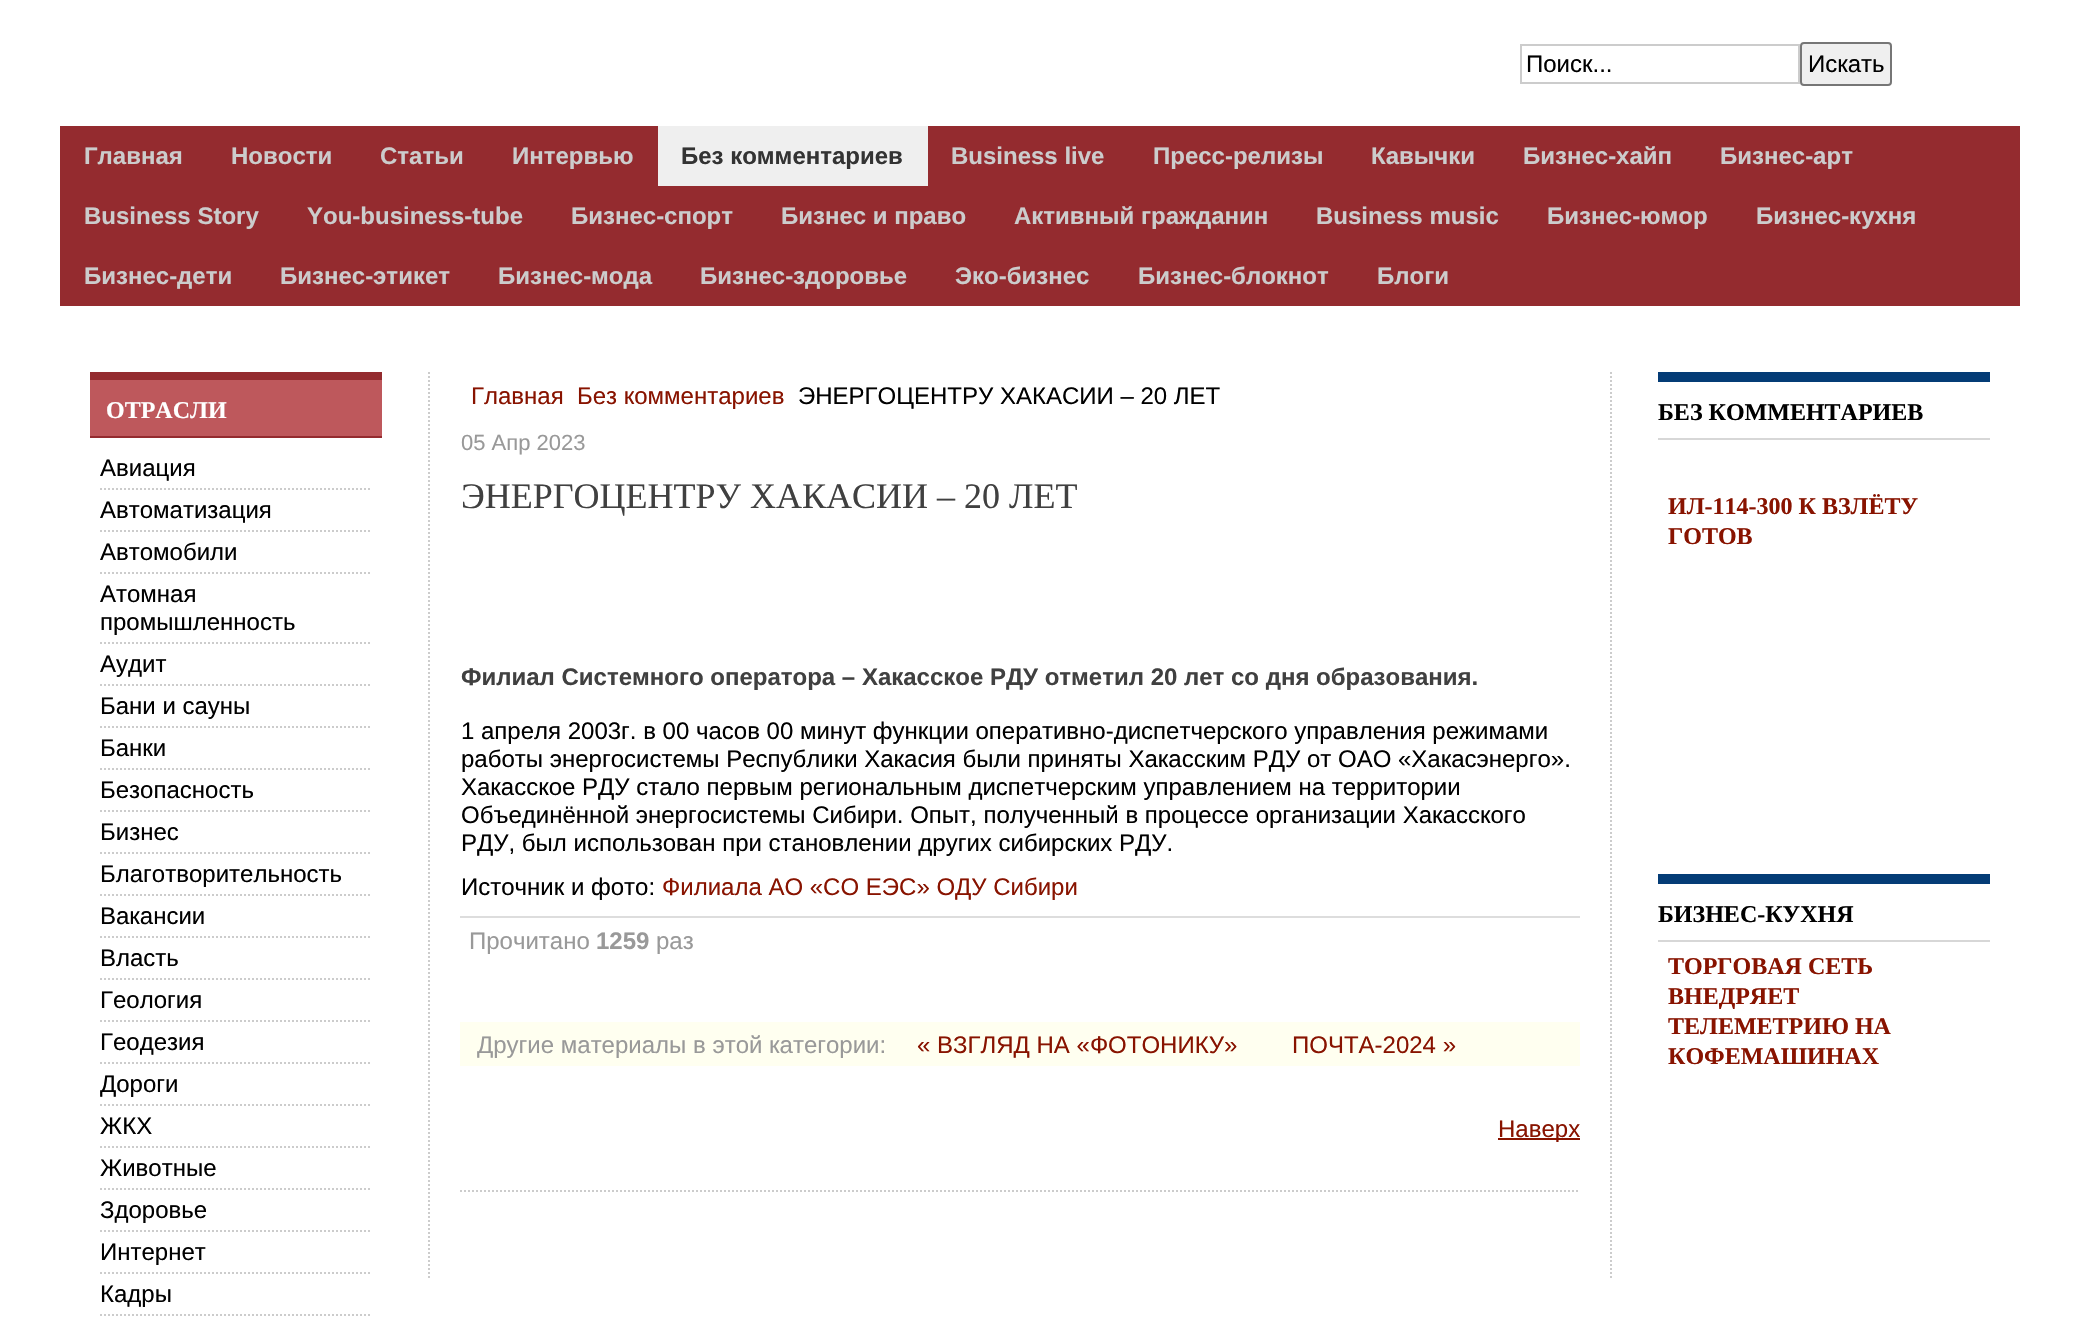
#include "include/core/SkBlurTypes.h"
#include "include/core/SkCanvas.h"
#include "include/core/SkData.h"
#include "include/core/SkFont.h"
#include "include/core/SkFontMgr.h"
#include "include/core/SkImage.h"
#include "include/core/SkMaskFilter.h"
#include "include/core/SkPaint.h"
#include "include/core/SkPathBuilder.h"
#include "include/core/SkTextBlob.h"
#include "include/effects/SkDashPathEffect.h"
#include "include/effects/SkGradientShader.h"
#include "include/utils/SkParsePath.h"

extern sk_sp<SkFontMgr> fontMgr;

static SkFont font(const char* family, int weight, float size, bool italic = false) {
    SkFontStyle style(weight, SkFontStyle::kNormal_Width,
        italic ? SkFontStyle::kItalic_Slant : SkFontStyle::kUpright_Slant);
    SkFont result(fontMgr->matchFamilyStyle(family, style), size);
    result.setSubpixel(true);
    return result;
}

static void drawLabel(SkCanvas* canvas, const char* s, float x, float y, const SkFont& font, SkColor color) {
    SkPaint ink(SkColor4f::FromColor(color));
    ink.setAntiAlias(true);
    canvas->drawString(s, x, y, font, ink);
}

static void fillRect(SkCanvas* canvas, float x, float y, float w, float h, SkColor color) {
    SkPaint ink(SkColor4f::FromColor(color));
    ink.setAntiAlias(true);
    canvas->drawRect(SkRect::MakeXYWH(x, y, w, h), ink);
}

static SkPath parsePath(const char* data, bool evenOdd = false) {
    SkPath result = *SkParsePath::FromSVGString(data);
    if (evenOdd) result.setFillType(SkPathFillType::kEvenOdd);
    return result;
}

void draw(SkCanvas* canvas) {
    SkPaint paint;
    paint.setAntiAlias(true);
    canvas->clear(0xFFFFFFFF);
    paint.setStroke(true);
    paint.setStrokeWidth(2);
    paint.setColor(0xFFCCCCCC);
    canvas->drawRect(SkRect::MakeXYWH(1521, 45, 278, 38), paint);
    SkFont font1 = font("Liberation Sans", 400, 24);
    drawLabel(canvas, "Поиск...", 1526, 72, font1, 0xFF000000);
    paint.setStroke(false);
    paint.setColor(0xFFEFEFEF);
    canvas->drawRoundRect(SkRect::MakeXYWH(1801, 43, 90, 42), 3, 3, paint);
    paint.setStroke(true);
    paint.setColor(0xFF767676);
    canvas->drawRoundRect(SkRect::MakeXYWH(1801, 43, 90, 42), 3, 3, paint);
    drawLabel(canvas, "Искать", 1808, 72, font1, 0xFF000000);
    fillRect(canvas, 60, 126, 1960, 180, 0xFF942B2F);
    SkFont font2 = font("Liberation Sans", 700, 24);
    drawLabel(canvas, "Главная", 84, 164, font2, 0xFFCCCCCC);
    drawLabel(canvas, "Новости", 231, 164, font2, 0xFFCCCCCC);
    drawLabel(canvas, "Статьи", 380, 164, font2, 0xFFCCCCCC);
    drawLabel(canvas, "Интервью", 512, 164, font2, 0xFFCCCCCC);
    fillRect(canvas, 658, 126, 270, 60, 0xFFEFEFEF);
    drawLabel(canvas, "Без комментариев", 681, 164, font2, 0xFF333333);
    drawLabel(canvas, "Business live", 951, 164, font2, 0xFFCCCCCC);
    drawLabel(canvas, "Пресс-релизы", 1153, 164, font2, 0xFFCCCCCC);
    drawLabel(canvas, "Кавычки", 1371, 164, font2, 0xFFCCCCCC);
    drawLabel(canvas, "Бизнес-хайп", 1523, 164, font2, 0xFFCCCCCC);
    drawLabel(canvas, "Бизнес-арт", 1720, 164, font2, 0xFFCCCCCC);
    drawLabel(canvas, "Business Story", 84, 224, font2, 0xFFCCCCCC);
    drawLabel(canvas, "You-business-tube", 307, 224, font2, 0xFFCCCCCC);
    drawLabel(canvas, "Бизнес-спорт", 571, 224, font2, 0xFFCCCCCC);
    drawLabel(canvas, "Бизнес и право", 781, 224, font2, 0xFFCCCCCC);
    drawLabel(canvas, "Активный гражданин", 1014, 224, font2, 0xFFCCCCCC);
    drawLabel(canvas, "Business music", 1316, 224, font2, 0xFFCCCCCC);
    drawLabel(canvas, "Бизнес-юмор", 1547, 224, font2, 0xFFCCCCCC);
    drawLabel(canvas, "Бизнес-кухня", 1756, 224, font2, 0xFFCCCCCC);
    drawLabel(canvas, "Бизнес-дети", 84, 284, font2, 0xFFCCCCCC);
    drawLabel(canvas, "Бизнес-этикет", 280, 284, font2, 0xFFCCCCCC);
    drawLabel(canvas, "Бизнес-мода", 498, 284, font2, 0xFFCCCCCC);
    drawLabel(canvas, "Бизнес-здоровье", 700, 284, font2, 0xFFCCCCCC);
    drawLabel(canvas, "Эко-бизнес", 955, 284, font2, 0xFFCCCCCC);
    drawLabel(canvas, "Бизнес-блокнот", 1138, 284, font2, 0xFFCCCCCC);
    drawLabel(canvas, "Блоги", 1377, 284, font2, 0xFFCCCCCC);
    fillRect(canvas, 90, 380, 292, 56, 0xFFBE585C);
    fillRect(canvas, 90, 372, 292, 8, 0xFF942B2F);
    fillRect(canvas, 90, 436, 292, 2, 0xFF942B2F);
    SkFont font3 = font("Liberation Serif", 700, 24);
    drawLabel(canvas, "ОТРАСЛИ", 106, 418, font3, 0xFFFFFFFF);
    paint.setColor(0xFFCCCCCC);
    paint.setPathEffect(SkDashPathEffect::Make({{2, 2}}, 0));
    canvas->drawPath(parsePath("M100 489H372"), paint);
    paint.setPathEffect(nullptr);
    drawLabel(canvas, "Авиация", 100, 476, font1, 0xFF000000);
    paint.setPathEffect(SkDashPathEffect::Make({{2, 2}}, 0));
    canvas->drawPath(parsePath("M100 531H372"), paint);
    paint.setPathEffect(nullptr);
    drawLabel(canvas, "Автоматизация", 100, 518, font1, 0xFF000000);
    paint.setPathEffect(SkDashPathEffect::Make({{2, 2}}, 0));
    canvas->drawPath(parsePath("M100 573H372"), paint);
    paint.setPathEffect(nullptr);
    drawLabel(canvas, "Автомобили", 100, 560, font1, 0xFF000000);
    paint.setPathEffect(SkDashPathEffect::Make({{2, 2}}, 0));
    canvas->drawPath(parsePath("M100 643H372"), paint);
    paint.setPathEffect(nullptr);
    drawLabel(canvas, "Атомная", 100, 602, font1, 0xFF000000);
    drawLabel(canvas, "промышленность", 100, 630, font1, 0xFF000000);
    paint.setPathEffect(SkDashPathEffect::Make({{2, 2}}, 0));
    canvas->drawPath(parsePath("M100 685H372"), paint);
    paint.setPathEffect(nullptr);
    drawLabel(canvas, "Аудит", 100, 672, font1, 0xFF000000);
    paint.setPathEffect(SkDashPathEffect::Make({{2, 2}}, 0));
    canvas->drawPath(parsePath("M100 727H372"), paint);
    paint.setPathEffect(nullptr);
    drawLabel(canvas, "Бани и сауны", 100, 714, font1, 0xFF000000);
    paint.setPathEffect(SkDashPathEffect::Make({{2, 2}}, 0));
    canvas->drawPath(parsePath("M100 769H372"), paint);
    paint.setPathEffect(nullptr);
    drawLabel(canvas, "Банки", 100, 756, font1, 0xFF000000);
    paint.setPathEffect(SkDashPathEffect::Make({{2, 2}}, 0));
    canvas->drawPath(parsePath("M100 811H372"), paint);
    paint.setPathEffect(nullptr);
    drawLabel(canvas, "Безопасность", 100, 798, font1, 0xFF000000);
    paint.setPathEffect(SkDashPathEffect::Make({{2, 2}}, 0));
    canvas->drawPath(parsePath("M100 853H372"), paint);
    paint.setPathEffect(nullptr);
    drawLabel(canvas, "Бизнес", 100, 840, font1, 0xFF000000);
    paint.setPathEffect(SkDashPathEffect::Make({{2, 2}}, 0));
    canvas->drawPath(parsePath("M100 895H372"), paint);
    paint.setPathEffect(nullptr);
    drawLabel(canvas, "Благотворительность", 100, 882, font1, 0xFF000000);
    paint.setPathEffect(SkDashPathEffect::Make({{2, 2}}, 0));
    canvas->drawPath(parsePath("M100 937H372"), paint);
    paint.setPathEffect(nullptr);
    drawLabel(canvas, "Вакансии", 100, 924, font1, 0xFF000000);
    paint.setPathEffect(SkDashPathEffect::Make({{2, 2}}, 0));
    canvas->drawPath(parsePath("M100 979H372"), paint);
    paint.setPathEffect(nullptr);
    drawLabel(canvas, "Власть", 100, 966, font1, 0xFF000000);
    paint.setPathEffect(SkDashPathEffect::Make({{2, 2}}, 0));
    canvas->drawPath(parsePath("M100 1021H372"), paint);
    paint.setPathEffect(nullptr);
    drawLabel(canvas, "Геология", 100, 1008, font1, 0xFF000000);
    paint.setPathEffect(SkDashPathEffect::Make({{2, 2}}, 0));
    canvas->drawPath(parsePath("M100 1063H372"), paint);
    paint.setPathEffect(nullptr);
    drawLabel(canvas, "Геодезия", 100, 1050, font1, 0xFF000000);
    paint.setPathEffect(SkDashPathEffect::Make({{2, 2}}, 0));
    canvas->drawPath(parsePath("M100 1105H372"), paint);
    paint.setPathEffect(nullptr);
    drawLabel(canvas, "Дороги", 100, 1092, font1, 0xFF000000);
    paint.setPathEffect(SkDashPathEffect::Make({{2, 2}}, 0));
    canvas->drawPath(parsePath("M100 1147H372"), paint);
    paint.setPathEffect(nullptr);
    drawLabel(canvas, "ЖКХ", 100, 1134, font1, 0xFF000000);
    paint.setPathEffect(SkDashPathEffect::Make({{2, 2}}, 0));
    canvas->drawPath(parsePath("M100 1189H372"), paint);
    paint.setPathEffect(nullptr);
    drawLabel(canvas, "Животные", 100, 1176, font1, 0xFF000000);
    paint.setPathEffect(SkDashPathEffect::Make({{2, 2}}, 0));
    canvas->drawPath(parsePath("M100 1231H372"), paint);
    paint.setPathEffect(nullptr);
    drawLabel(canvas, "Здоровье", 100, 1218, font1, 0xFF000000);
    paint.setPathEffect(SkDashPathEffect::Make({{2, 2}}, 0));
    canvas->drawPath(parsePath("M100 1273H372"), paint);
    paint.setPathEffect(nullptr);
    drawLabel(canvas, "Интернет", 100, 1260, font1, 0xFF000000);
    paint.setPathEffect(SkDashPathEffect::Make({{2, 2}}, 0));
    canvas->drawPath(parsePath("M100 1315H372"), paint);
    paint.setPathEffect(nullptr);
    drawLabel(canvas, "Кадры", 100, 1302, font1, 0xFF000000);
    paint.setPathEffect(SkDashPathEffect::Make({{2, 2}}, 0));
    canvas->drawPath(parsePath("M1611 372V1280"), paint);
    paint.setPathEffect(nullptr);
    paint.setPathEffect(SkDashPathEffect::Make({{2, 2}}, 0));
    canvas->drawPath(parsePath("M429 372V1280"), paint);
    paint.setPathEffect(nullptr);
    drawLabel(canvas, "Главная", 471, 404, font1, 0xFF881300);
    drawLabel(canvas, "Без комментариев", 577, 404, font1, 0xFF881300);
    drawLabel(canvas, "ЭНЕРГОЦЕНТРУ ХАКАСИИ – 20 ЛЕТ", 798, 404, font1, 0xFF000000);
    paint.setPathEffect(SkDashPathEffect::Make({{2, 2}}, 0));
    canvas->drawPath(parsePath("M460 1191H1580"), paint);
    paint.setPathEffect(nullptr);
    SkFont font4 = font("Liberation Sans", 400, 22);
    drawLabel(canvas, "05 Апр 2023", 461, 450, font4, 0xFF999999);
    SkFont font5 = font("Liberation Serif", 400, 36);
    drawLabel(canvas, "ЭНЕРГОЦЕНТРУ ХАКАСИИ – 20 ЛЕТ", 461, 508, font5, 0xFF404040);
    drawLabel(canvas, "Филиал Системного оператора – Хакасское РДУ отметил 20 лет со дня образования.", 461, 685, font2, 0xFF404040);
    drawLabel(canvas, "1 апреля 2003г. в 00 часов 00 минут функции оперативно-диспетчерского управления режимами", 461, 739, font1, 0xFF000000);
    drawLabel(canvas, "работы энергосистемы Республики Хакасия были приняты Хакасским РДУ от ОАО «Хакасэнерго».", 461, 767, font1, 0xFF000000);
    drawLabel(canvas, "Хакасское РДУ стало первым региональным диспетчерским управлением на территории", 461, 795, font1, 0xFF000000);
    drawLabel(canvas, "Объединённой энергосистемы Сибири. Опыт, полученный в процессе организации Хакасского", 461, 823, font1, 0xFF000000);
    drawLabel(canvas, "РДУ, был использован при становлении других сибирских РДУ.", 461, 851, font1, 0xFF000000);
    drawLabel(canvas, "Источник и фото:", 461, 895, font1, 0xFF000000);
    drawLabel(canvas, "Филиала АО «СО ЕЭС» ОДУ Сибири", 662, 895, font1, 0xFF881300);
    fillRect(canvas, 460, 916, 1120, 2, 0xFFDDDDDD);
    drawLabel(canvas, "Прочитано", 469, 949, font1, 0xFF999999);
    drawLabel(canvas, "1259", 596, 949, font2, 0xFF999999);
    drawLabel(canvas, "раз", 656, 949, font1, 0xFF999999);
    fillRect(canvas, 460, 1022, 1120, 44, 0xFFFFFFF0);
    drawLabel(canvas, "Другие материалы в этой категории:", 477, 1053, font1, 0xFF999999);
    drawLabel(canvas, "« ВЗГЛЯД НА «ФОТОНИКУ»", 917, 1053, font1, 0xFF881300);
    drawLabel(canvas, "ПОЧТА-2024 »", 1292, 1053, font1, 0xFF881300);
    fillRect(canvas, 1498, 1138, 82, 2, 0xFF881300);
    drawLabel(canvas, "Наверх", 1498, 1137, font1, 0xFF881300);
    fillRect(canvas, 1658, 372, 332, 10, 0xFF043C76);
    fillRect(canvas, 1658, 438, 332, 2, 0xFFD7D7D7);
    drawLabel(canvas, "БЕЗ КОММЕНТАРИЕВ", 1658, 420, font3, 0xFF000000);
    drawLabel(canvas, "ИЛ-114-300 К ВЗЛЁТУ", 1668, 514, font3, 0xFF881300);
    drawLabel(canvas, "ГОТОВ", 1668, 544, font3, 0xFF881300);
    fillRect(canvas, 1658, 874, 332, 10, 0xFF043C76);
    fillRect(canvas, 1658, 940, 332, 2, 0xFFD7D7D7);
    drawLabel(canvas, "БИЗНЕС-КУХНЯ", 1658, 922, font3, 0xFF000000);
    drawLabel(canvas, "ТОРГОВАЯ СЕТЬ", 1668, 974, font3, 0xFF881300);
    drawLabel(canvas, "ВНЕДРЯЕТ", 1668, 1004, font3, 0xFF881300);
    drawLabel(canvas, "ТЕЛЕМЕТРИЮ НА", 1668, 1034, font3, 0xFF881300);
    drawLabel(canvas, "КОФЕМАШИНАХ", 1668, 1064, font3, 0xFF881300);
}
